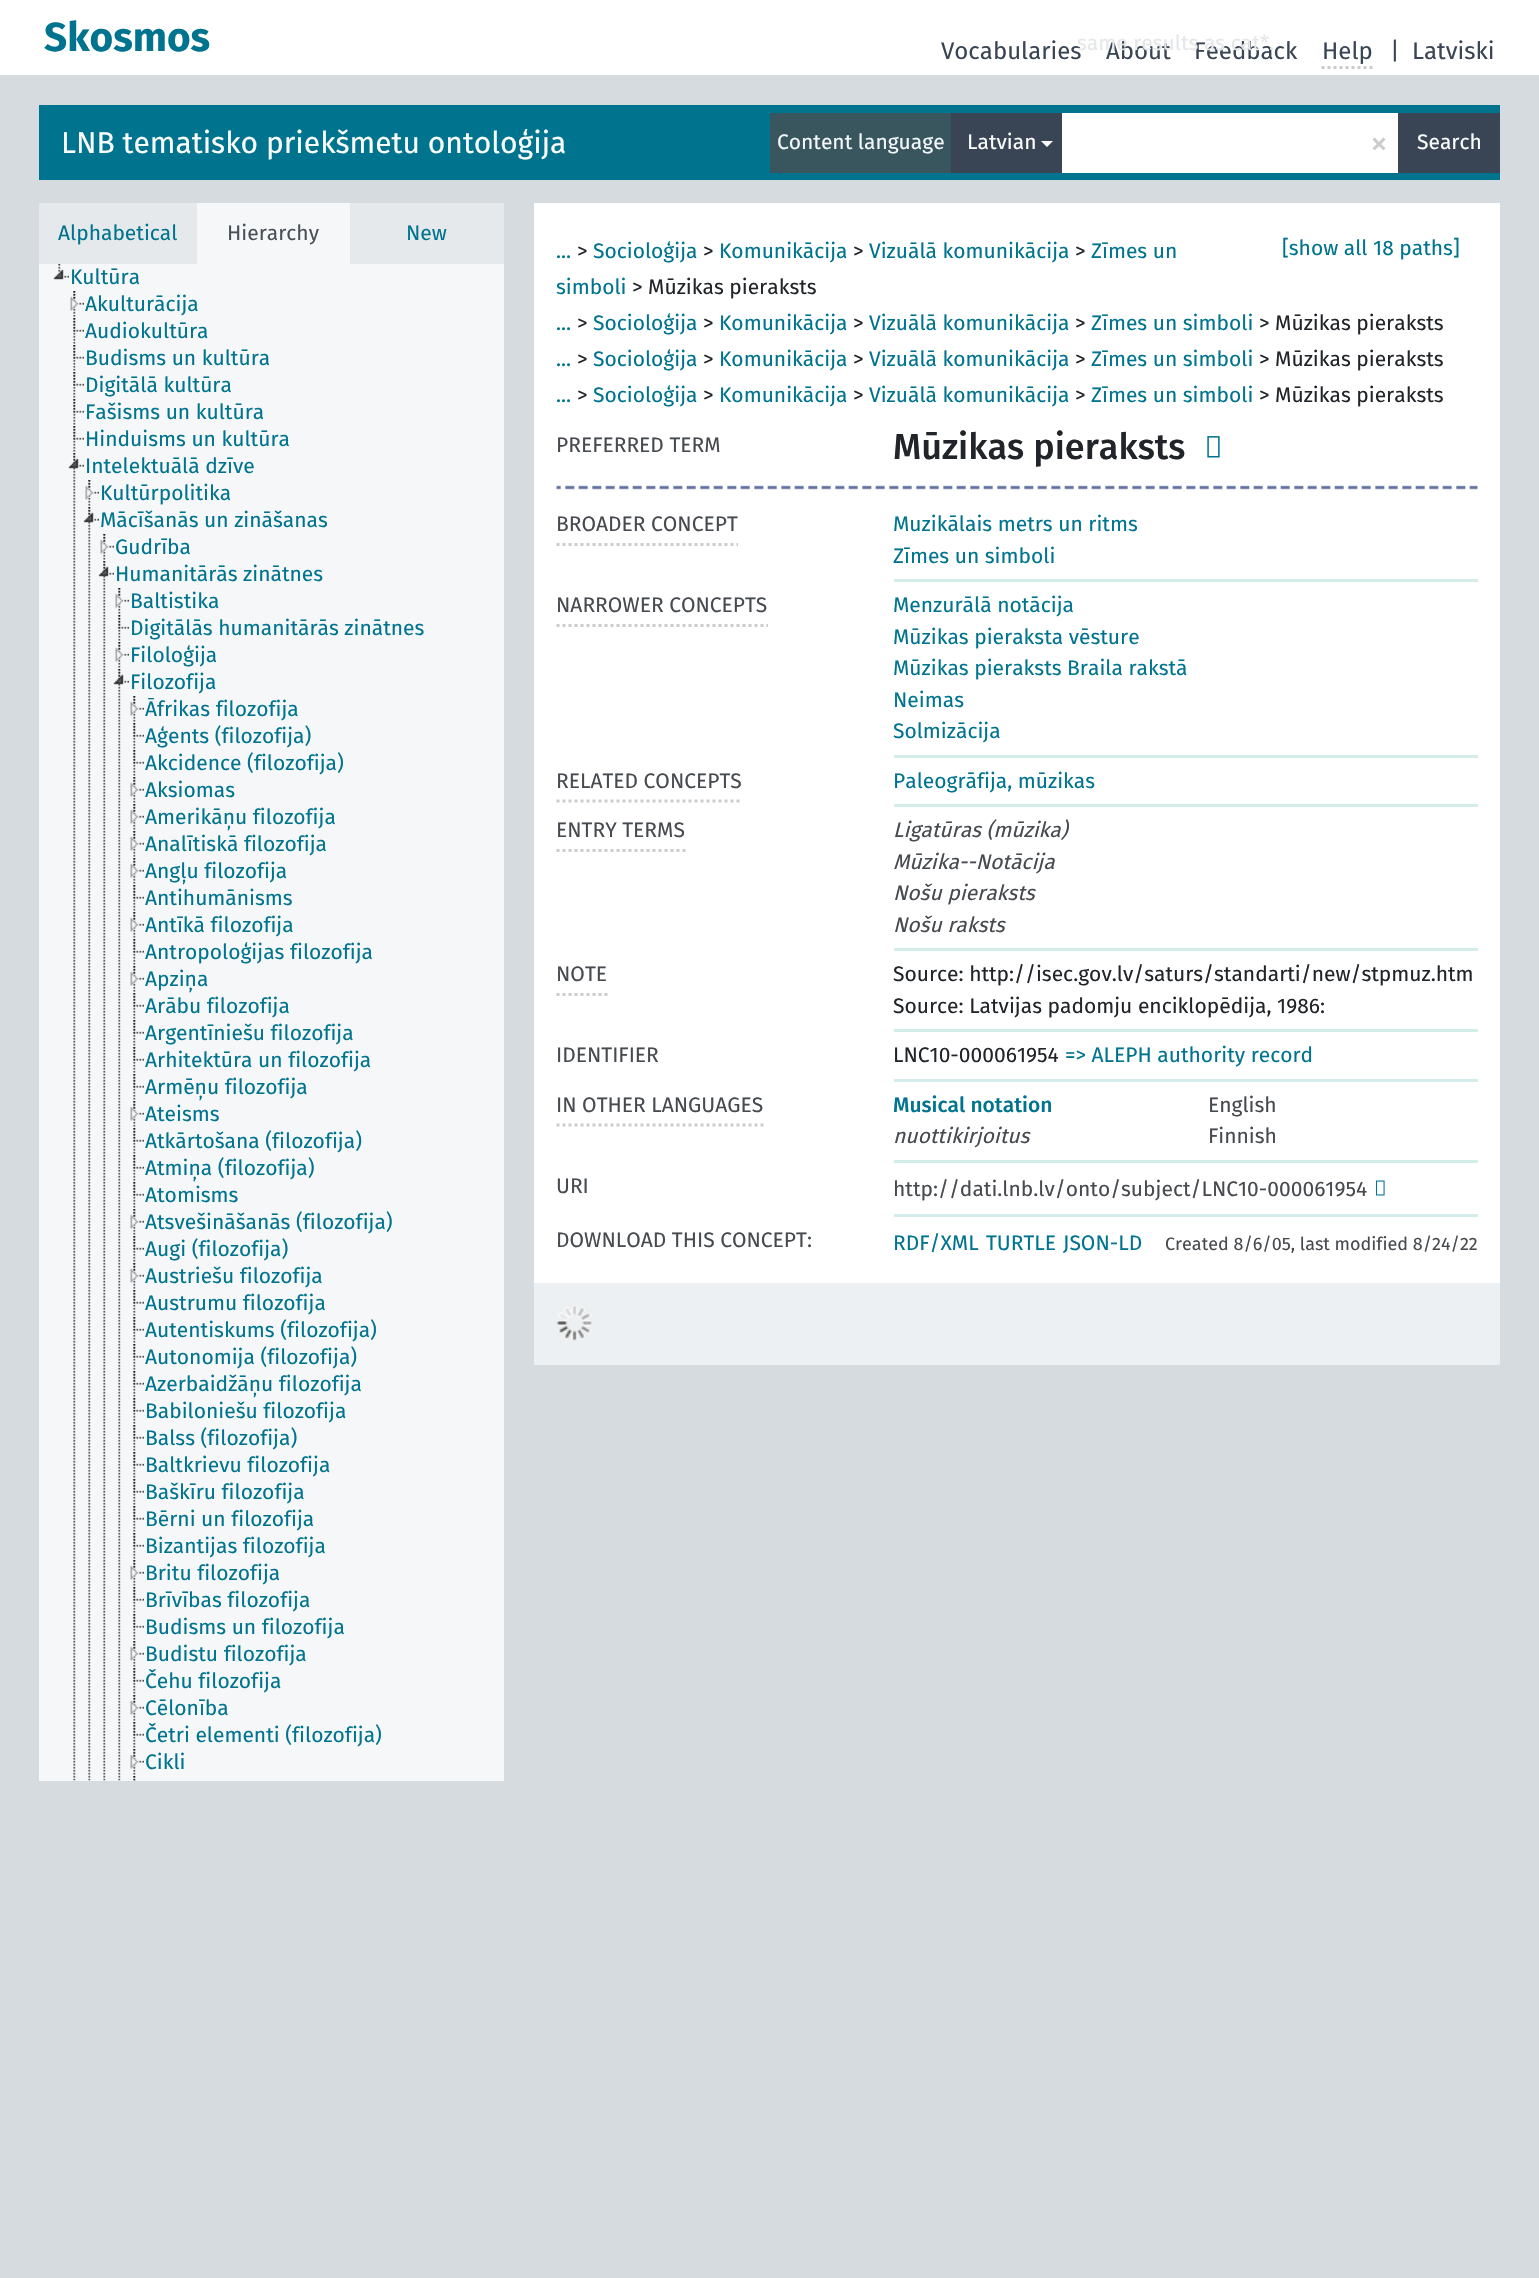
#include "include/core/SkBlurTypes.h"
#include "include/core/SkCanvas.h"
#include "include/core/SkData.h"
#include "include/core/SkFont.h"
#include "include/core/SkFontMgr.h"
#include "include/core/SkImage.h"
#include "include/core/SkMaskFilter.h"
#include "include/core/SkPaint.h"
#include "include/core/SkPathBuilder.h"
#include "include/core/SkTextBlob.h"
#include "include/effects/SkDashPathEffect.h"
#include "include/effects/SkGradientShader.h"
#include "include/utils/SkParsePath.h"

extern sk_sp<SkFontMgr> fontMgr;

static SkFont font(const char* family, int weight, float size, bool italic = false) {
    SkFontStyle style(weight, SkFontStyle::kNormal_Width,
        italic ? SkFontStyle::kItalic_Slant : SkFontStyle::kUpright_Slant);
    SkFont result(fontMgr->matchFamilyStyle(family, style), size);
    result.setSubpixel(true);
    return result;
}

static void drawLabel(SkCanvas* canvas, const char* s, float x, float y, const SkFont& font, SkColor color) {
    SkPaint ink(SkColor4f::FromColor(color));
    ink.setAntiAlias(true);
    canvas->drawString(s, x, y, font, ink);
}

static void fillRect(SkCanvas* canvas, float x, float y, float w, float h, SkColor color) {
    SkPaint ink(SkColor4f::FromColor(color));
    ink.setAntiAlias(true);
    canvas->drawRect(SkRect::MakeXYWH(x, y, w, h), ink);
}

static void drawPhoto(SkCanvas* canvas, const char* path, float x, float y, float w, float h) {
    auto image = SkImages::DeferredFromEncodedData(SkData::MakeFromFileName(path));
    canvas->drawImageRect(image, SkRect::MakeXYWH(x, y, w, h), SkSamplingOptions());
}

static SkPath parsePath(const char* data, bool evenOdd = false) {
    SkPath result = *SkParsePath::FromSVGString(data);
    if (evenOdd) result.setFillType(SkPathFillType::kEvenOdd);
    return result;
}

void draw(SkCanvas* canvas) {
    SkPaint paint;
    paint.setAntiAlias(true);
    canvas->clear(0xFFD5DBDE);
    fillRect(canvas, 0, 0, 1539, 75, 0xFFFFFFFF);
    SkFont font1 = font("Fira Sans", 700, 40.5f);
    drawLabel(canvas, "Skosmos", 44, 51, font1, 0xFF00748F);
    SkFont font2 = font("Fira Sans", 400, 24);
    drawLabel(canvas, "Vocabularies", 941, 59, font2, 0xFF394554);
    drawLabel(canvas, "About", 1106, 59, font2, 0xFF394554);
    drawLabel(canvas, "Feedback", 1194, 59, font2, 0xFF394554);
    SkFont font3 = font("Fira Sans", 400, 21);
    drawLabel(canvas, "same results as cat*.", 1077, 50, font3, 0xFFE5E7E9);
    drawLabel(canvas, "Help", 1322, 59, font2, 0xFF394554);
    paint.setStroke(true);
    paint.setStrokeWidth(3);
    paint.setColor(0xFFCCCCCC);
    paint.setPathEffect(SkDashPathEffect::Make({{3, 3}}, 0));
    canvas->drawPath(parsePath("M1321.5 67.5H1372.5"), paint);
    paint.setPathEffect(nullptr);
    drawLabel(canvas, "|", 1390, 59, font2, 0xFF394554);
    drawLabel(canvas, "Latviski", 1412, 59, font2, 0xFF394554);
    fillRect(canvas, 39, 105, 1461, 75, 0xFF00748F);
    SkFont font4 = font("Fira Sans", 400, 30);
    drawLabel(canvas, "LNB tematisko priekšmetu ontoloģija", 61, 153, font4, 0xFFFCFEFE);
    fillRect(canvas, 770, 113, 181, 60, 0xFF39555E);
    drawLabel(canvas, "Content language", 777, 149, font3, 0xFFF2F8F9);
    fillRect(canvas, 951, 113, 111, 60, 0xFF394554);
    drawLabel(canvas, "Latvian", 967, 149, font3, 0xFFFCFEFE);
    paint.setStroke(false);
    paint.setColor(0xFFFFFFFF);
    canvas->drawPath(parsePath("M1041 141H1053L1047 147Z"), paint);
    fillRect(canvas, 1062, 113, 336, 60, 0xFFFFFFFF);
    SkFont font5 = font("Fira Sans", 400, 36);
    drawLabel(canvas, "×", 1370, 155, font5, 0xFFCCCCCC);
    fillRect(canvas, 1398, 113, 102, 60, 0xFF394554);
    drawLabel(canvas, "Search", 1417, 149, font3, 0xFFFCFEFE);
    fillRect(canvas, 39, 203, 158, 61, 0xFFE6E9EB);
    drawLabel(canvas, "Alphabetical", 58, 240, font3, 0xFF00748F);
    fillRect(canvas, 197, 203, 153, 61, 0xFFF6F7F8);
    drawLabel(canvas, "Hierarchy", 227, 240, font3, 0xFF495057);
    fillRect(canvas, 350, 203, 154, 61, 0xFFE6E9EB);
    drawLabel(canvas, "New", 406, 240, font3, 0xFF00748F);
    fillRect(canvas, 39, 264, 465, 1517, 0xFFF6F7F8);
    drawPhoto(canvas, "assets/img1.png", 53, 264, 16, 16);
    drawLabel(canvas, "Kultūra", 70, 284, font3, 0xFF00748F);
    drawPhoto(canvas, "assets/img2.png", 73, 291, 3, 26);
    drawPhoto(canvas, "assets/img3.png", 70, 291, 14, 20);
    drawLabel(canvas, "Akulturācija", 85, 311, font3, 0xFF00748F);
    drawPhoto(canvas, "assets/img2.png", 73, 318, 3, 26);
    drawPhoto(canvas, "assets/img4.png", 73, 318, 11, 14);
    drawLabel(canvas, "Audiokultūra", 85, 338, font3, 0xFF00748F);
    drawPhoto(canvas, "assets/img2.png", 73, 345, 3, 26);
    drawPhoto(canvas, "assets/img4.png", 73, 345, 11, 14);
    drawLabel(canvas, "Budisms un kultūra", 85, 365, font3, 0xFF00748F);
    drawPhoto(canvas, "assets/img2.png", 73, 372, 3, 26);
    drawPhoto(canvas, "assets/img4.png", 73, 372, 11, 14);
    drawLabel(canvas, "Digitālā kultūra", 85, 392, font3, 0xFF00748F);
    drawPhoto(canvas, "assets/img2.png", 73, 399, 3, 26);
    drawPhoto(canvas, "assets/img4.png", 73, 399, 11, 14);
    drawLabel(canvas, "Fašisms un kultūra", 85, 419, font3, 0xFF00748F);
    drawPhoto(canvas, "assets/img2.png", 73, 426, 3, 26);
    drawPhoto(canvas, "assets/img4.png", 73, 426, 11, 14);
    drawLabel(canvas, "Hinduisms un kultūra", 85, 446, font3, 0xFF00748F);
    drawPhoto(canvas, "assets/img5.png", 73, 453, 3, 1328);
    drawPhoto(canvas, "assets/img6.png", 68, 453, 16, 16);
    drawLabel(canvas, "Intelektuālā dzīve", 85, 473, font3, 0xFF00748F);
    drawPhoto(canvas, "assets/img2.png", 88, 480, 3, 26);
    drawPhoto(canvas, "assets/img3.png", 85, 480, 14, 20);
    drawLabel(canvas, "Kultūrpolitika", 100, 500, font3, 0xFF00748F);
    drawPhoto(canvas, "assets/img7.png", 88, 507, 3, 1274);
    drawPhoto(canvas, "assets/img6.png", 83, 507, 16, 16);
    drawLabel(canvas, "Mācīšanās un zināšanas", 100, 527, font3, 0xFF00748F);
    drawPhoto(canvas, "assets/img2.png", 103, 534, 3, 26);
    drawPhoto(canvas, "assets/img3.png", 100, 534, 14, 20);
    drawLabel(canvas, "Gudrība", 115, 554, font3, 0xFF00748F);
    drawPhoto(canvas, "assets/img8.png", 103, 561, 3, 1220);
    drawPhoto(canvas, "assets/img6.png", 98, 561, 16, 16);
    drawLabel(canvas, "Humanitārās zinātnes", 115, 581, font3, 0xFF00748F);
    drawPhoto(canvas, "assets/img2.png", 118, 588, 3, 26);
    drawPhoto(canvas, "assets/img3.png", 115, 588, 14, 20);
    drawLabel(canvas, "Baltistika", 130, 608, font3, 0xFF00748F);
    drawPhoto(canvas, "assets/img2.png", 118, 615, 3, 26);
    drawPhoto(canvas, "assets/img4.png", 118, 615, 11, 14);
    drawLabel(canvas, "Digitālās humanitārās zinātnes", 130, 635, font3, 0xFF00748F);
    drawPhoto(canvas, "assets/img2.png", 118, 642, 3, 26);
    drawPhoto(canvas, "assets/img3.png", 115, 642, 14, 20);
    drawLabel(canvas, "Filoloģija", 130, 662, font3, 0xFF00748F);
    drawPhoto(canvas, "assets/img9.png", 118, 669, 3, 1112);
    drawPhoto(canvas, "assets/img6.png", 113, 669, 16, 16);
    drawLabel(canvas, "Filozofija", 130, 689, font3, 0xFF00748F);
    drawPhoto(canvas, "assets/img2.png", 133, 696, 3, 26);
    drawPhoto(canvas, "assets/img3.png", 130, 696, 14, 20);
    drawLabel(canvas, "Āfrikas filozofija", 145, 716, font3, 0xFF00748F);
    drawPhoto(canvas, "assets/img2.png", 133, 723, 3, 26);
    drawPhoto(canvas, "assets/img4.png", 133, 723, 11, 14);
    drawLabel(canvas, "Aģents (filozofija)", 145, 743, font3, 0xFF00748F);
    drawPhoto(canvas, "assets/img2.png", 133, 750, 3, 26);
    drawPhoto(canvas, "assets/img4.png", 133, 750, 11, 14);
    drawLabel(canvas, "Akcidence (filozofija)", 145, 770, font3, 0xFF00748F);
    drawPhoto(canvas, "assets/img2.png", 133, 777, 3, 26);
    drawPhoto(canvas, "assets/img3.png", 130, 777, 14, 20);
    drawLabel(canvas, "Aksiomas", 145, 797, font3, 0xFF00748F);
    drawPhoto(canvas, "assets/img2.png", 133, 804, 3, 26);
    drawPhoto(canvas, "assets/img3.png", 130, 804, 14, 20);
    drawLabel(canvas, "Amerikāņu filozofija", 145, 824, font3, 0xFF00748F);
    drawPhoto(canvas, "assets/img2.png", 133, 831, 3, 26);
    drawPhoto(canvas, "assets/img3.png", 130, 831, 14, 20);
    drawLabel(canvas, "Analītiskā filozofija", 145, 851, font3, 0xFF00748F);
    drawPhoto(canvas, "assets/img2.png", 133, 858, 3, 26);
    drawPhoto(canvas, "assets/img3.png", 130, 858, 14, 20);
    drawLabel(canvas, "Angļu filozofija", 145, 878, font3, 0xFF00748F);
    drawPhoto(canvas, "assets/img2.png", 133, 885, 3, 26);
    drawPhoto(canvas, "assets/img4.png", 133, 885, 11, 14);
    drawLabel(canvas, "Antihumānisms", 145, 905, font3, 0xFF00748F);
    drawPhoto(canvas, "assets/img2.png", 133, 912, 3, 26);
    drawPhoto(canvas, "assets/img3.png", 130, 912, 14, 20);
    drawLabel(canvas, "Antīkā filozofija", 145, 932, font3, 0xFF00748F);
    drawPhoto(canvas, "assets/img2.png", 133, 939, 3, 26);
    drawPhoto(canvas, "assets/img4.png", 133, 939, 11, 14);
    drawLabel(canvas, "Antropoloģijas filozofija", 145, 959, font3, 0xFF00748F);
    drawPhoto(canvas, "assets/img2.png", 133, 966, 3, 26);
    drawPhoto(canvas, "assets/img3.png", 130, 966, 14, 20);
    drawLabel(canvas, "Apziņa", 145, 986, font3, 0xFF00748F);
    drawPhoto(canvas, "assets/img2.png", 133, 993, 3, 26);
    drawPhoto(canvas, "assets/img4.png", 133, 993, 11, 14);
    drawLabel(canvas, "Arābu filozofija", 145, 1013, font3, 0xFF00748F);
    drawPhoto(canvas, "assets/img2.png", 133, 1020, 3, 26);
    drawPhoto(canvas, "assets/img4.png", 133, 1020, 11, 14);
    drawLabel(canvas, "Argentīniešu filozofija", 145, 1040, font3, 0xFF00748F);
    drawPhoto(canvas, "assets/img2.png", 133, 1047, 3, 26);
    drawPhoto(canvas, "assets/img4.png", 133, 1047, 11, 14);
    drawLabel(canvas, "Arhitektūra un filozofija", 145, 1067, font3, 0xFF00748F);
    drawPhoto(canvas, "assets/img2.png", 133, 1074, 3, 26);
    drawPhoto(canvas, "assets/img4.png", 133, 1074, 11, 14);
    drawLabel(canvas, "Armēņu filozofija", 145, 1094, font3, 0xFF00748F);
    drawPhoto(canvas, "assets/img2.png", 133, 1101, 3, 26);
    drawPhoto(canvas, "assets/img3.png", 130, 1101, 14, 20);
    drawLabel(canvas, "Ateisms", 145, 1121, font3, 0xFF00748F);
    drawPhoto(canvas, "assets/img2.png", 133, 1128, 3, 26);
    drawPhoto(canvas, "assets/img4.png", 133, 1128, 11, 14);
    drawLabel(canvas, "Atkārtošana (filozofija)", 145, 1148, font3, 0xFF00748F);
    drawPhoto(canvas, "assets/img2.png", 133, 1155, 3, 26);
    drawPhoto(canvas, "assets/img4.png", 133, 1155, 11, 14);
    drawLabel(canvas, "Atmiņa (filozofija)", 145, 1175, font3, 0xFF00748F);
    drawPhoto(canvas, "assets/img2.png", 133, 1182, 3, 26);
    drawPhoto(canvas, "assets/img4.png", 133, 1182, 11, 14);
    drawLabel(canvas, "Atomisms", 145, 1202, font3, 0xFF00748F);
    drawPhoto(canvas, "assets/img2.png", 133, 1209, 3, 26);
    drawPhoto(canvas, "assets/img3.png", 130, 1209, 14, 20);
    drawLabel(canvas, "Atsvešināšanās (filozofija)", 145, 1229, font3, 0xFF00748F);
    drawPhoto(canvas, "assets/img2.png", 133, 1236, 3, 26);
    drawPhoto(canvas, "assets/img4.png", 133, 1236, 11, 14);
    drawLabel(canvas, "Augi (filozofija)", 145, 1256, font3, 0xFF00748F);
    drawPhoto(canvas, "assets/img2.png", 133, 1263, 3, 26);
    drawPhoto(canvas, "assets/img3.png", 130, 1263, 14, 20);
    drawLabel(canvas, "Austriešu filozofija", 145, 1283, font3, 0xFF00748F);
    drawPhoto(canvas, "assets/img2.png", 133, 1290, 3, 26);
    drawPhoto(canvas, "assets/img4.png", 133, 1290, 11, 14);
    drawLabel(canvas, "Austrumu filozofija", 145, 1310, font3, 0xFF00748F);
    drawPhoto(canvas, "assets/img2.png", 133, 1317, 3, 26);
    drawPhoto(canvas, "assets/img4.png", 133, 1317, 11, 14);
    drawLabel(canvas, "Autentiskums (filozofija)", 145, 1337, font3, 0xFF00748F);
    drawPhoto(canvas, "assets/img2.png", 133, 1344, 3, 26);
    drawPhoto(canvas, "assets/img4.png", 133, 1344, 11, 14);
    drawLabel(canvas, "Autonomija (filozofija)", 145, 1364, font3, 0xFF00748F);
    drawPhoto(canvas, "assets/img2.png", 133, 1371, 3, 26);
    drawPhoto(canvas, "assets/img4.png", 133, 1371, 11, 14);
    drawLabel(canvas, "Azerbaidžāņu filozofija", 145, 1391, font3, 0xFF00748F);
    drawPhoto(canvas, "assets/img2.png", 133, 1398, 3, 26);
    drawPhoto(canvas, "assets/img4.png", 133, 1398, 11, 14);
    drawLabel(canvas, "Babiloniešu filozofija", 145, 1418, font3, 0xFF00748F);
    drawPhoto(canvas, "assets/img2.png", 133, 1425, 3, 26);
    drawPhoto(canvas, "assets/img4.png", 133, 1425, 11, 14);
    drawLabel(canvas, "Balss (filozofija)", 145, 1445, font3, 0xFF00748F);
    drawPhoto(canvas, "assets/img2.png", 133, 1452, 3, 26);
    drawPhoto(canvas, "assets/img4.png", 133, 1452, 11, 14);
    drawLabel(canvas, "Baltkrievu filozofija", 145, 1472, font3, 0xFF00748F);
    drawPhoto(canvas, "assets/img2.png", 133, 1479, 3, 26);
    drawPhoto(canvas, "assets/img4.png", 133, 1479, 11, 14);
    drawLabel(canvas, "Baškīru filozofija", 145, 1499, font3, 0xFF00748F);
    drawPhoto(canvas, "assets/img2.png", 133, 1506, 3, 26);
    drawPhoto(canvas, "assets/img4.png", 133, 1506, 11, 14);
    drawLabel(canvas, "Bērni un filozofija", 145, 1526, font3, 0xFF00748F);
    drawPhoto(canvas, "assets/img2.png", 133, 1533, 3, 26);
    drawPhoto(canvas, "assets/img4.png", 133, 1533, 11, 14);
    drawLabel(canvas, "Bizantijas filozofija", 145, 1553, font3, 0xFF00748F);
    drawPhoto(canvas, "assets/img2.png", 133, 1560, 3, 26);
    drawPhoto(canvas, "assets/img3.png", 130, 1560, 14, 20);
    drawLabel(canvas, "Britu filozofija", 145, 1580, font3, 0xFF00748F);
    drawPhoto(canvas, "assets/img2.png", 133, 1587, 3, 26);
    drawPhoto(canvas, "assets/img4.png", 133, 1587, 11, 14);
    drawLabel(canvas, "Brīvības filozofija", 145, 1607, font3, 0xFF00748F);
    drawPhoto(canvas, "assets/img2.png", 133, 1614, 3, 26);
    drawPhoto(canvas, "assets/img4.png", 133, 1614, 11, 14);
    drawLabel(canvas, "Budisms un filozofija", 145, 1634, font3, 0xFF00748F);
    drawPhoto(canvas, "assets/img2.png", 133, 1641, 3, 26);
    drawPhoto(canvas, "assets/img3.png", 130, 1641, 14, 20);
    drawLabel(canvas, "Budistu filozofija", 145, 1661, font3, 0xFF00748F);
    drawPhoto(canvas, "assets/img2.png", 133, 1668, 3, 26);
    drawPhoto(canvas, "assets/img4.png", 133, 1668, 11, 14);
    drawLabel(canvas, "Čehu filozofija", 145, 1688, font3, 0xFF00748F);
    drawPhoto(canvas, "assets/img2.png", 133, 1695, 3, 26);
    drawPhoto(canvas, "assets/img3.png", 130, 1695, 14, 20);
    drawLabel(canvas, "Cēlonība", 145, 1715, font3, 0xFF00748F);
    drawPhoto(canvas, "assets/img2.png", 133, 1722, 3, 26);
    drawPhoto(canvas, "assets/img4.png", 133, 1722, 11, 14);
    drawLabel(canvas, "Četri elementi (filozofija)", 145, 1742, font3, 0xFF00748F);
    drawPhoto(canvas, "assets/img2.png", 133, 1749, 3, 26);
    drawPhoto(canvas, "assets/img3.png", 130, 1749, 14, 20);
    drawLabel(canvas, "Cikli", 145, 1769, font3, 0xFF00748F);
    drawPhoto(canvas, "assets/img10.png", 133, 1776, 3, 5);
    drawPhoto(canvas, "assets/img11.png", 133, 1776, 3, 5);
    fillRect(canvas, 534, 203, 966, 1080, 0xFFFFFFFF);
    drawLabel(canvas, ">", 577, 258, font3, 0xFF212529);
    drawLabel(canvas, "Socioloģija", 593, 258, font3, 0xFF00748F);
    drawLabel(canvas, ">", 703, 258, font3, 0xFF212529);
    drawLabel(canvas, "Komunikācija", 719, 258, font3, 0xFF00748F);
    drawLabel(canvas, ">", 853, 258, font3, 0xFF212529);
    drawLabel(canvas, "Vizuālā komunikācija", 869, 258, font3, 0xFF00748F);
    drawLabel(canvas, ">", 1075, 258, font3, 0xFF212529);
    drawLabel(canvas, "Zīmes un", 1091, 258, font3, 0xFF00748F);
    drawLabel(canvas, "...", 556, 258, font3, 0xFF00748F);
    drawLabel(canvas, "simboli", 556, 294, font3, 0xFF00748F);
    drawLabel(canvas, "> Mūzikas pieraksts", 632, 294, font3, 0xFF212529);
    drawLabel(canvas, "[show all 18 paths]", 1282, 255, font3, 0xFF00748F);
    drawLabel(canvas, ">", 577, 330, font3, 0xFF212529);
    drawLabel(canvas, "Socioloģija", 593, 330, font3, 0xFF00748F);
    drawLabel(canvas, ">", 703, 330, font3, 0xFF212529);
    drawLabel(canvas, "Komunikācija", 719, 330, font3, 0xFF00748F);
    drawLabel(canvas, ">", 853, 330, font3, 0xFF212529);
    drawLabel(canvas, "Vizuālā komunikācija", 869, 330, font3, 0xFF00748F);
    drawLabel(canvas, ">", 1075, 330, font3, 0xFF212529);
    drawLabel(canvas, "Zīmes un simboli", 1091, 330, font3, 0xFF00748F);
    drawLabel(canvas, "> Mūzikas pieraksts", 1259, 330, font3, 0xFF212529);
    drawLabel(canvas, "...", 556, 330, font3, 0xFF00748F);
    drawLabel(canvas, ">", 577, 366, font3, 0xFF212529);
    drawLabel(canvas, "Socioloģija", 593, 366, font3, 0xFF00748F);
    drawLabel(canvas, ">", 703, 366, font3, 0xFF212529);
    drawLabel(canvas, "Komunikācija", 719, 366, font3, 0xFF00748F);
    drawLabel(canvas, ">", 853, 366, font3, 0xFF212529);
    drawLabel(canvas, "Vizuālā komunikācija", 869, 366, font3, 0xFF00748F);
    drawLabel(canvas, ">", 1075, 366, font3, 0xFF212529);
    drawLabel(canvas, "Zīmes un simboli", 1091, 366, font3, 0xFF00748F);
    drawLabel(canvas, "> Mūzikas pieraksts", 1259, 366, font3, 0xFF212529);
    drawLabel(canvas, "...", 556, 366, font3, 0xFF00748F);
    drawLabel(canvas, ">", 577, 402, font3, 0xFF212529);
    drawLabel(canvas, "Socioloģija", 593, 402, font3, 0xFF00748F);
    drawLabel(canvas, ">", 703, 402, font3, 0xFF212529);
    drawLabel(canvas, "Komunikācija", 719, 402, font3, 0xFF00748F);
    drawLabel(canvas, ">", 853, 402, font3, 0xFF212529);
    drawLabel(canvas, "Vizuālā komunikācija", 869, 402, font3, 0xFF00748F);
    drawLabel(canvas, ">", 1075, 402, font3, 0xFF212529);
    drawLabel(canvas, "Zīmes un simboli", 1091, 402, font3, 0xFF00748F);
    drawLabel(canvas, "> Mūzikas pieraksts", 1259, 402, font3, 0xFF212529);
    drawLabel(canvas, "...", 556, 402, font3, 0xFF00748F);
    drawLabel(canvas, "PREFERRED TERM", 556, 452, font3, 0xFF474B4F);
    SkFont font6 = font("Fira Sans", 500, 36);
    drawLabel(canvas, "Mūzikas pieraksts", 893, 459, font6, 0xFF212529);
    drawPhoto(canvas, "assets/img12.png", 1207, 436, 13, 22);
    drawPhoto(canvas, "assets/img13.png", 556, 485, 922, 5);
    paint.setStroke(true);
    paint.setColor(0xFFCCCCCC);
    paint.setPathEffect(SkDashPathEffect::Make({{3, 3}}, 0));
    canvas->drawPath(parsePath("M556.5 544.5H738"), paint);
    paint.setPathEffect(nullptr);
    drawLabel(canvas, "BROADER CONCEPT", 556, 531, font3, 0xFF474B4F);
    fillRect(canvas, 894, 579, 584, 3, 0xFFD4EDEB);
    drawLabel(canvas, "Muzikālais metrs un ritms", 893, 531, font3, 0xFF00748F);
    drawLabel(canvas, "Zīmes un simboli", 893, 563, font3, 0xFF00748F);
    paint.setPathEffect(SkDashPathEffect::Make({{3, 3}}, 0));
    canvas->drawPath(parsePath("M556.5 625.5H768"), paint);
    paint.setPathEffect(nullptr);
    drawLabel(canvas, "NARROWER CONCEPTS", 556, 612, font3, 0xFF474B4F);
    fillRect(canvas, 894, 755, 584, 3, 0xFFD4EDEB);
    drawLabel(canvas, "Menzurālā notācija", 893, 612, font3, 0xFF00748F);
    drawLabel(canvas, "Mūzikas pieraksta vēsture", 893, 644, font3, 0xFF00748F);
    drawLabel(canvas, "Mūzikas pieraksts Braila rakstā", 893, 675, font3, 0xFF00748F);
    drawLabel(canvas, "Neimas", 893, 707, font3, 0xFF00748F);
    drawLabel(canvas, "Solmizācija", 893, 738, font3, 0xFF00748F);
    paint.setPathEffect(SkDashPathEffect::Make({{3, 3}}, 0));
    canvas->drawPath(parsePath("M556.5 801H742.5"), paint);
    paint.setPathEffect(nullptr);
    drawLabel(canvas, "RELATED CONCEPTS", 556, 788, font3, 0xFF474B4F);
    fillRect(canvas, 894, 804, 584, 3, 0xFFD4EDEB);
    drawLabel(canvas, "Paleogrāfija, mūzikas", 893, 788, font3, 0xFF00748F);
    paint.setPathEffect(SkDashPathEffect::Make({{3, 3}}, 0));
    canvas->drawPath(parsePath("M556.5 850.5H685.5"), paint);
    paint.setPathEffect(nullptr);
    drawLabel(canvas, "ENTRY TERMS", 556, 837, font3, 0xFF474B4F);
    fillRect(canvas, 894, 948, 584, 3, 0xFFD4EDEB);
    SkFont font7 = font("Fira Sans", 400, 21, true);
    drawLabel(canvas, "Ligatūras (mūzika)", 893, 837, font7, 0xFF474B4F);
    drawLabel(canvas, "Mūzika--Notācija", 893, 869, font7, 0xFF474B4F);
    drawLabel(canvas, "Nošu pieraksts", 893, 900, font7, 0xFF474B4F);
    drawLabel(canvas, "Nošu raksts", 893, 932, font7, 0xFF474B4F);
    paint.setPathEffect(SkDashPathEffect::Make({{3, 3}}, 0));
    canvas->drawPath(parsePath("M556.5 994.5H607.5"), paint);
    paint.setPathEffect(nullptr);
    drawLabel(canvas, "NOTE", 556, 981, font3, 0xFF474B4F);
    fillRect(canvas, 894, 1029, 584, 3, 0xFFD4EDEB);
    drawLabel(canvas, "Source: http://isec.gov.lv/saturs/standarti/new/stpmuz.htm", 893, 981, font3, 0xFF212529);
    drawLabel(canvas, "Source: Latvijas padomju enciklopēdija, 1986:", 893, 1013, font3, 0xFF212529);
    drawLabel(canvas, "IDENTIFIER", 556, 1062, font3, 0xFF474B4F);
    fillRect(canvas, 894, 1079, 584, 3, 0xFFD4EDEB);
    drawLabel(canvas, "LNC10-000061954", 893, 1062, font3, 0xFF212529);
    drawLabel(canvas, "=> ALEPH authority record", 1065, 1062, font3, 0xFF00748F);
    paint.setPathEffect(SkDashPathEffect::Make({{3, 3}}, 0));
    canvas->drawPath(parsePath("M556.5 1125H763.5"), paint);
    paint.setPathEffect(nullptr);
    drawLabel(canvas, "IN OTHER LANGUAGES", 556, 1112, font3, 0xFF474B4F);
    fillRect(canvas, 894, 1160, 584, 3, 0xFFD4EDEB);
    SkFont font8 = font("Fira Sans", 500, 21);
    drawLabel(canvas, "Musical notation", 893, 1112, font8, 0xFF00748F);
    drawLabel(canvas, "English", 1208, 1112, font3, 0xFF474B4F);
    drawLabel(canvas, "nuottikirjoitus", 893, 1143, font7, 0xFF474B4F);
    drawLabel(canvas, "Finnish", 1208, 1143, font3, 0xFF474B4F);
    drawLabel(canvas, "URI", 556, 1193, font3, 0xFF474B4F);
    fillRect(canvas, 894, 1214, 584, 3, 0xFFD4EDEB);
    drawLabel(canvas, "http://dati.lnb.lv/onto/subject/LNC10-000061954", 893, 1196, font3, 0xFF474B4F);
    drawPhoto(canvas, "assets/img14.png", 1375, 1180, 10, 16);
    drawLabel(canvas, "DOWNLOAD THIS CONCEPT:", 556, 1247, font3, 0xFF474B4F);
    drawLabel(canvas, "RDF/XML", 893, 1250, font3, 0xFF00748F);
    drawLabel(canvas, "TURTLE", 986, 1250, font3, 0xFF00748F);
    drawLabel(canvas, "JSON-LD", 1063, 1250, font3, 0xFF00748F);
    SkFont font9 = font("Fira Sans", 400, 18);
    drawLabel(canvas, "Created 8/6/05, last modified 8/24/22", 1165, 1250, font9, 0xFF474B4F);
    fillRect(canvas, 534, 1283, 966, 82, 0xFFEDF0F2);
    drawPhoto(canvas, "assets/img15.png", 556, 1305, 37, 36);
}
